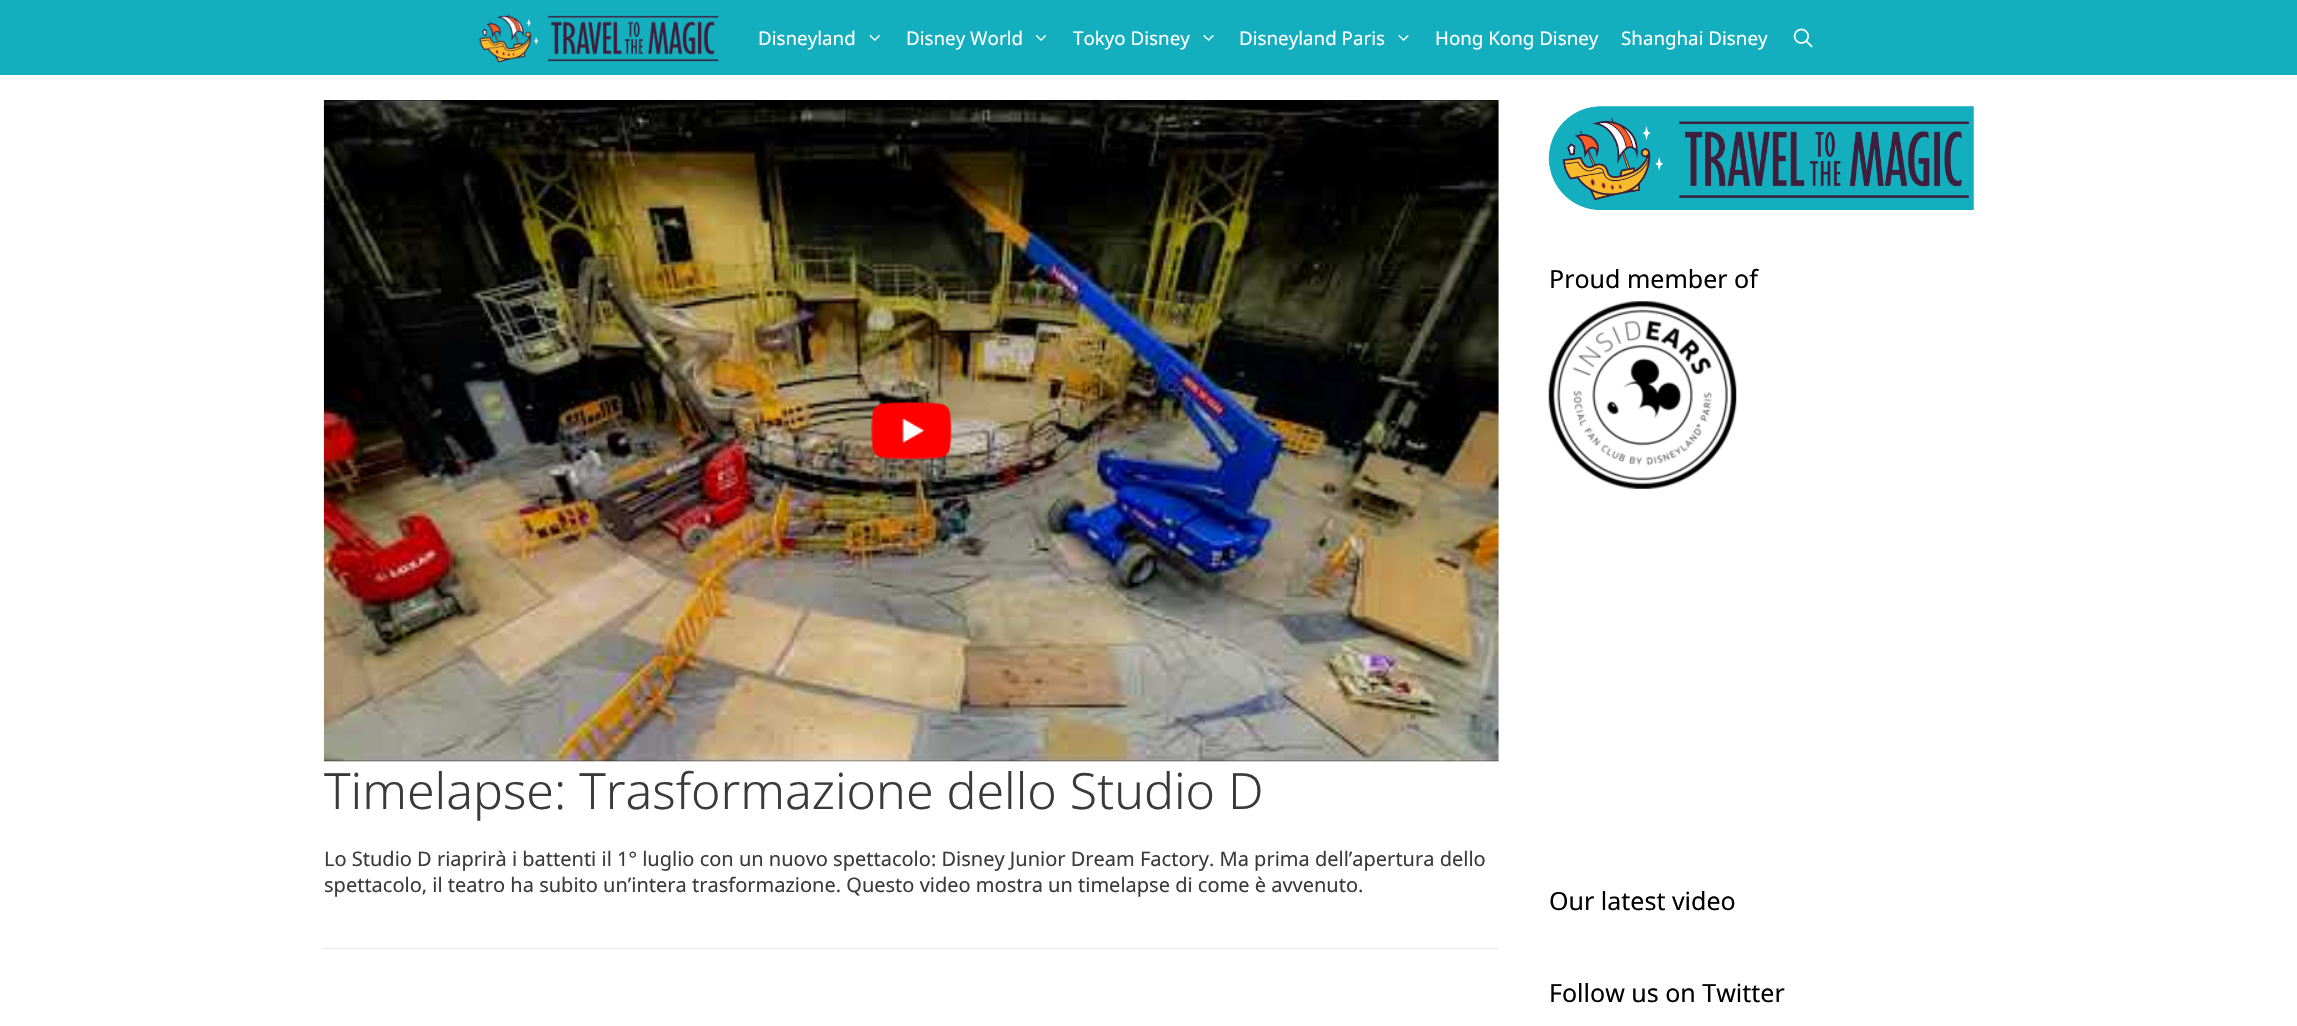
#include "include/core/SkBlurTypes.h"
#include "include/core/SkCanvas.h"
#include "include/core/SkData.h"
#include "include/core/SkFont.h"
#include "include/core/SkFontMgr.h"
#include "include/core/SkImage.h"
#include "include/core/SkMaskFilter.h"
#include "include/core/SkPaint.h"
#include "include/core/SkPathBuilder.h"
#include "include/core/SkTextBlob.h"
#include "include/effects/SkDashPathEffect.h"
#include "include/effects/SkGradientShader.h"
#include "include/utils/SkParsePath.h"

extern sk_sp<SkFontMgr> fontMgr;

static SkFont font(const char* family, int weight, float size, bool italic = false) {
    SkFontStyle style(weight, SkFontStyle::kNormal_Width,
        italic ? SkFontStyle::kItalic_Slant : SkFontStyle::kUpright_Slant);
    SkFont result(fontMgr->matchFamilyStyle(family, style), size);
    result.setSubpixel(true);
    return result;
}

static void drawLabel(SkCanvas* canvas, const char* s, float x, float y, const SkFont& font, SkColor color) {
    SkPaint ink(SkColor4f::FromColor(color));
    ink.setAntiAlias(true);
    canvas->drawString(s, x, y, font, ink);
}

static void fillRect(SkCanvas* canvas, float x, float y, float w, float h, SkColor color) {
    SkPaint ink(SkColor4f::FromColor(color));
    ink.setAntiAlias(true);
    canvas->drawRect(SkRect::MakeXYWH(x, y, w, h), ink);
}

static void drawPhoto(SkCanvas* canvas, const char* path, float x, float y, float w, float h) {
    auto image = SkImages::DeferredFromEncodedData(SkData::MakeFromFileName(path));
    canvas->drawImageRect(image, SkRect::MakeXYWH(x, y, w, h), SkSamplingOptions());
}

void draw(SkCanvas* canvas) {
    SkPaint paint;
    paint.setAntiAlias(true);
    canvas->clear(0xFFFFFFFF);
    fillRect(canvas, 0, 0, 2297, 75, 0xFF13AFBE);
    drawPhoto(canvas, "assets/img1.png", 479, 13, 240, 50);
    SkFont font1 = font("Noto Sans", 400, 18.75f);
    drawLabel(canvas, "Disneyland", 758, 45, font1, 0xFFFFFFFF);
    drawPhoto(canvas, "assets/img2.png", 869, 35, 11, 6);
    drawLabel(canvas, "Disney World", 906, 45, font1, 0xFFFFFFFF);
    drawPhoto(canvas, "assets/img3.png", 1035, 35, 12, 6);
    drawLabel(canvas, "Tokyo Disney", 1073, 45, font1, 0xFFFFFFFF);
    drawPhoto(canvas, "assets/img4.png", 1203, 35, 11, 6);
    drawLabel(canvas, "Disneyland Paris", 1239, 45, font1, 0xFFFFFFFF);
    drawPhoto(canvas, "assets/img4.png", 1398, 35, 11, 6);
    drawLabel(canvas, "Hong Kong Disney", 1435, 45, font1, 0xFFFFFFFF);
    drawLabel(canvas, "Shanghai Disney", 1621, 45, font1, 0xFFFFFFFF);
    drawPhoto(canvas, "assets/img5.png", 1793, 28, 20, 20);
    drawPhoto(canvas, "assets/img6.png", 323, 100, 1176, 662);
    drawPhoto(canvas, "assets/img7.png", 871, 402, 81, 57);
    SkFont font2 = font("Noto Sans", 300, 50);
    drawLabel(canvas, "Timelapse: Trasformazione dello Studio D", 324, 809, font2, 0xFF3A3A3A);
    SkFont font3 = font("Noto Sans", 400, 20);
    drawLabel(canvas, "Lo Studio D riaprirà i battenti il 1° luglio con un nuovo spettacolo: Disney Junior Dream Factory. Ma prima dell’apertura dello", 324, 866, font3, 0xFF3A3A3A);
    drawLabel(canvas, "spettacolo, il teatro ha subito un’intera trasformazione. Questo video mostra un timelapse di come è avvenuto.", 324, 892, font3, 0xFF3A3A3A);
    fillRect(canvas, 324, 948, 1175, 1, 0xFFE6E6E6);
    drawPhoto(canvas, "assets/img8.png", 1548, 106, 426, 104);
    SkFont font4 = font("Noto Sans", 400, 25);
    drawLabel(canvas, "Proud member of", 1549, 288, font4, 0xFF000000);
    drawPhoto(canvas, "assets/img9.png", 1548, 301, 189, 188);
    drawLabel(canvas, "Our latest video", 1549, 910, font4, 0xFF000000);
    drawLabel(canvas, "Follow us on Twitter", 1549, 1002, font4, 0xFF000000);
}
